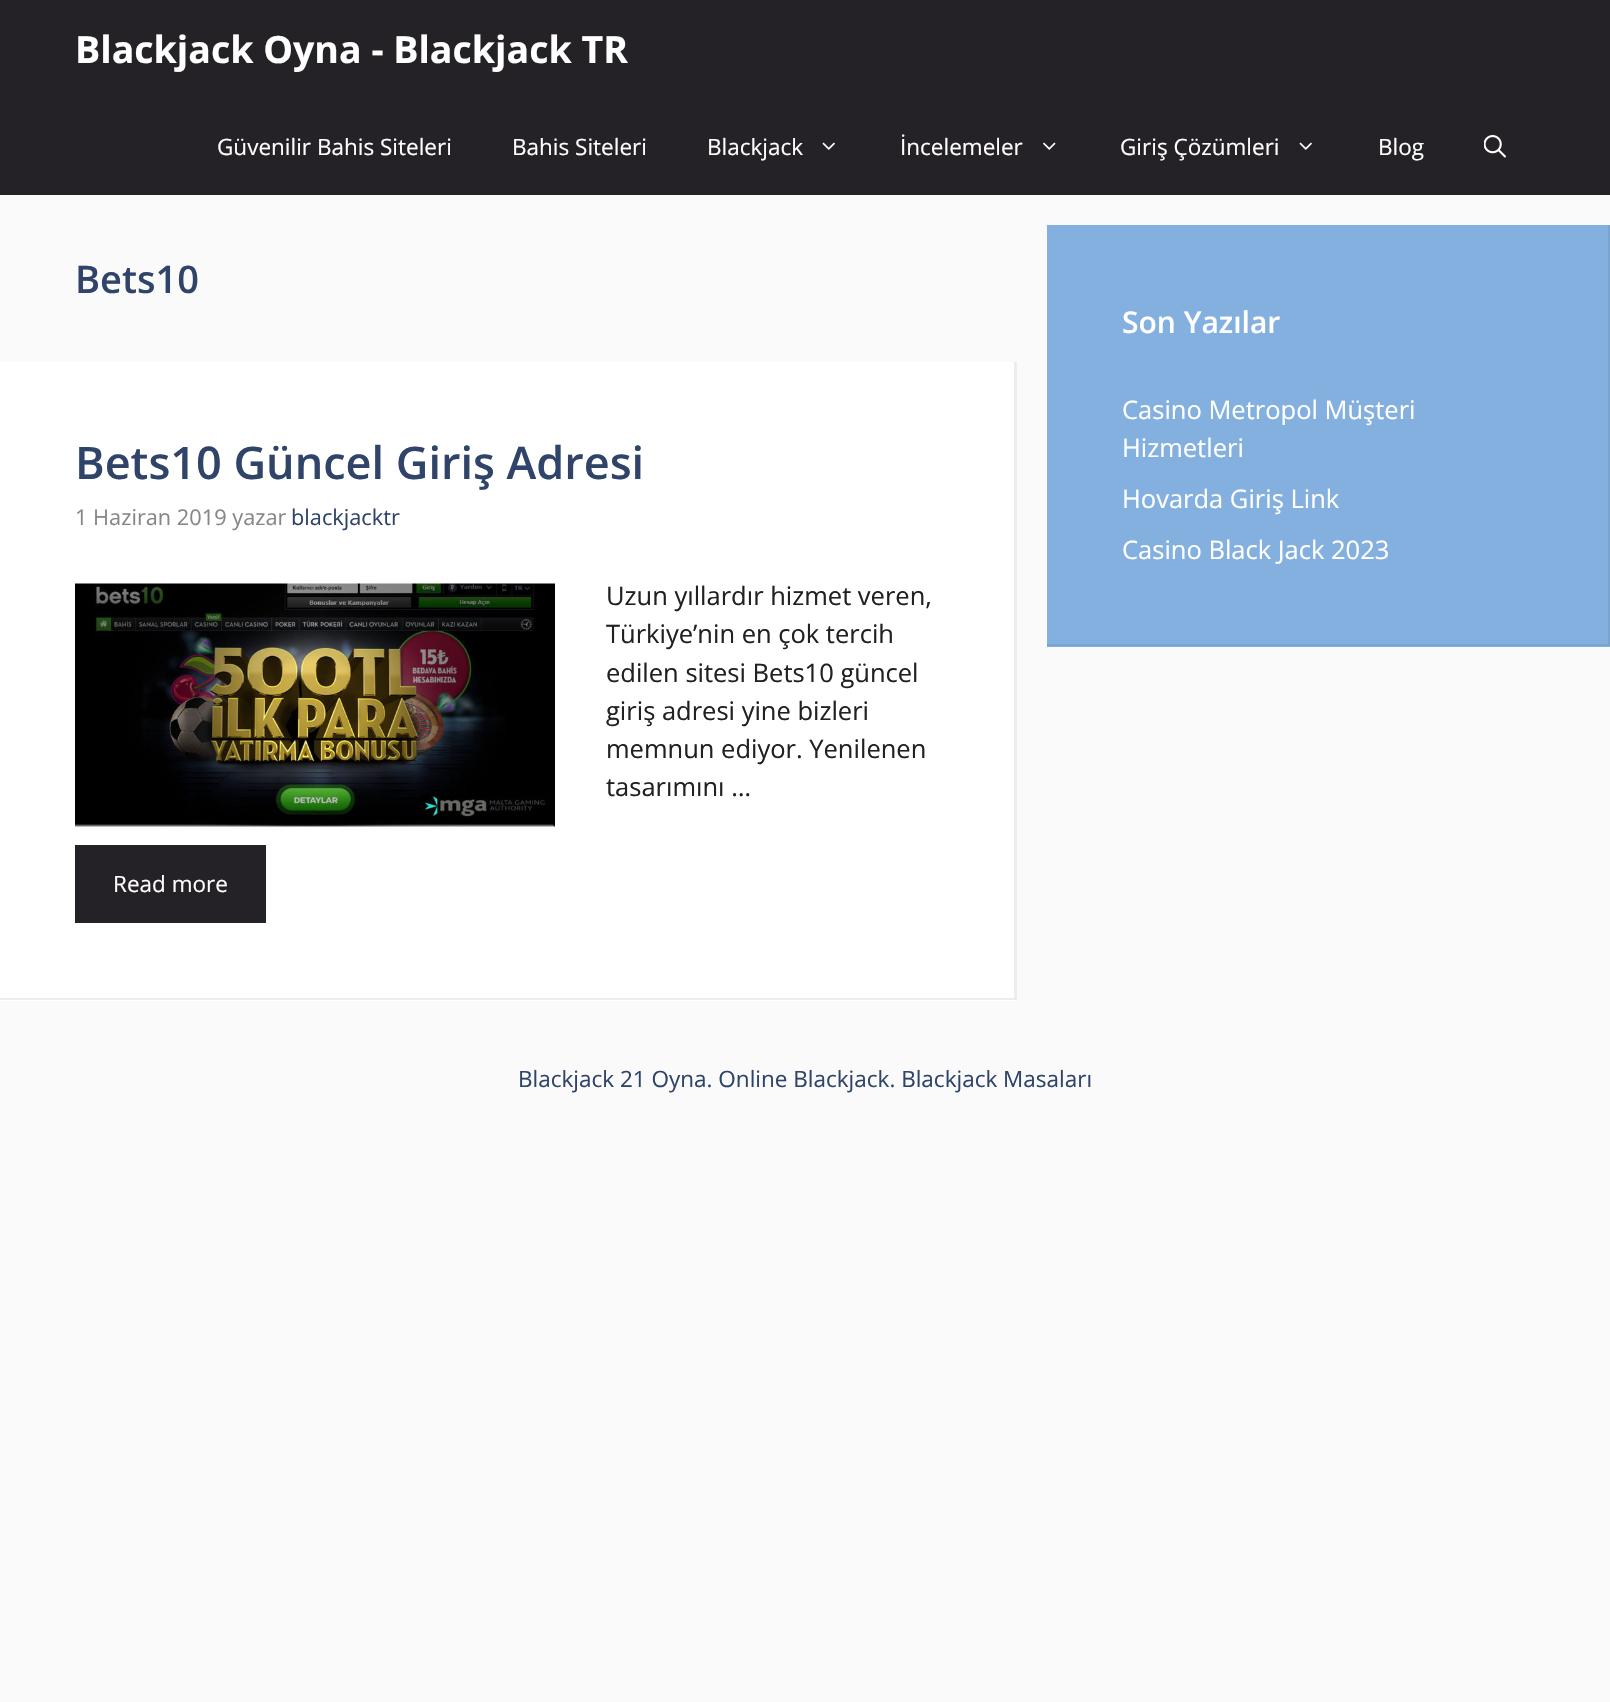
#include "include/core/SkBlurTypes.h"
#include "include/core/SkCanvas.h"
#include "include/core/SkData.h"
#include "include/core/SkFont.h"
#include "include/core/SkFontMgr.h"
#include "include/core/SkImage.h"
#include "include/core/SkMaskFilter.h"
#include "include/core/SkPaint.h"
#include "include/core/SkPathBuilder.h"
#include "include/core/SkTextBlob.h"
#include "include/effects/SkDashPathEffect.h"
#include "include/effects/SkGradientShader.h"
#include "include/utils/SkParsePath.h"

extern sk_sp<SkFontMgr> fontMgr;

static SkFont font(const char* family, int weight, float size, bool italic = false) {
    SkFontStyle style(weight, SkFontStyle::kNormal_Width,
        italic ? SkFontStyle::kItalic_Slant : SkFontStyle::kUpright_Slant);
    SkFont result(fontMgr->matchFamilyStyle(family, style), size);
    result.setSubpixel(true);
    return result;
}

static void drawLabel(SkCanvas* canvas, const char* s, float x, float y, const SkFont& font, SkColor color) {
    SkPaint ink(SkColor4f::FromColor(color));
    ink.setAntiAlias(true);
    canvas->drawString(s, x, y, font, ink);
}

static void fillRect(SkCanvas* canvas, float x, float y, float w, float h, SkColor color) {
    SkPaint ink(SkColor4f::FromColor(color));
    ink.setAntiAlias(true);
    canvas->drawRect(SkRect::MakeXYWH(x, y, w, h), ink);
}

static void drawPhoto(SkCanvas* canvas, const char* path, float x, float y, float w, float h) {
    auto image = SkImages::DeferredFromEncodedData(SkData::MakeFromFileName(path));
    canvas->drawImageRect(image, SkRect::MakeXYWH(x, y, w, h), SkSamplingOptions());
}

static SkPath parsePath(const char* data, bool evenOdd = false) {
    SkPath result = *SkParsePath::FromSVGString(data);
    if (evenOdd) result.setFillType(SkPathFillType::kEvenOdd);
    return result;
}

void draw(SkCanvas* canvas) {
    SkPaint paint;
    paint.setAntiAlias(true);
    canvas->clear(0xFFFAFAFA);
    fillRect(canvas, 0, 0, 1610, 195, 0xFF242226);
    SkFont font1 = font("Open Sans", 700, 37.5f);
    drawLabel(canvas, "Blackjack Oyna - Blackjack TR", 75, 63, font1, 0xFFFFFFFF);
    SkFont font2 = font("Open Sans", 400, 22.5f);
    drawLabel(canvas, "Güvenilir Bahis Siteleri", 217, 155, font2, 0xFFFFFFFF);
    drawLabel(canvas, "Bahis Siteleri", 512, 155, font2, 0xFFFFFFFF);
    drawLabel(canvas, "Blackjack", 707, 155, font2, 0xFFFFFFFF);
    drawPhoto(canvas, "assets/img1.png", 822, 142, 13, 8);
    drawLabel(canvas, "İncelemeler", 900, 155, font2, 0xFFFFFFFF);
    drawPhoto(canvas, "assets/img2.png", 1043, 142, 13, 8);
    drawLabel(canvas, "Giriş Çözümleri", 1120, 155, font2, 0xFFFFFFFF);
    drawPhoto(canvas, "assets/img1.png", 1299, 142, 13, 8);
    drawLabel(canvas, "Blog", 1378, 155, font2, 0xFFFFFFFF);
    drawPhoto(canvas, "assets/img3.png", 1484, 135, 22, 23);
    SkFont font3 = font("Open Sans", 600, 38);
    drawLabel(canvas, "Bets10", 75, 293, font3, 0xFF2F4468);
    fillRect(canvas, 0, 362, 1017, 639, 0xFFFFFFFF);
    paint.setColor(0xFFEDEDED);
    canvas->drawPath(parsePath("M1017 362V1000L1014 998V362Z"), paint);
    paint.setColor(0x12000000);
    canvas->drawPath(parsePath("M1017 1000H0V998H1014Z"), paint);
    SkFont font4 = font("Open Sans", 600, 45);
    drawLabel(canvas, "Bets10 Güncel Giriş Adresi", 75, 479, font4, 0xFF2F4468);
    SkFont font5 = font("Open Sans", 400, 21.75f);
    drawLabel(canvas, "1 Haziran 2019 yazar", 75, 525, font5, 0xFF878787);
    drawLabel(canvas, "blackjacktr", 291, 525, font5, 0xFF2F4468);
    drawPhoto(canvas, "assets/img4.png", 75, 583, 480, 244);
    SkFont font6 = font("Open Sans", 400, 25.5f);
    drawLabel(canvas, "Uzun yıllardır hizmet veren,", 606, 605, font6, 0xFF212121);
    drawLabel(canvas, "Türkiye’nin en çok tercih", 606, 643, font6, 0xFF212121);
    drawLabel(canvas, "edilen sitesi Bets10 güncel", 606, 682, font6, 0xFF212121);
    drawLabel(canvas, "giriş adresi yine bizleri", 606, 720, font6, 0xFF212121);
    drawLabel(canvas, "memnun ediyor. Yenilenen", 606, 758, font6, 0xFF212121);
    drawLabel(canvas, "tasarımını …", 606, 796, font6, 0xFF212121);
    fillRect(canvas, 75, 845, 191, 78, 0xFF242226);
    drawLabel(canvas, "Read more", 113, 892, font2, 0xFFFFFFFF);
    fillRect(canvas, 1047, 225, 563, 422, 0xFF83B0DE);
    paint.setColor(0xFF7AA4CE);
    canvas->drawPath(parsePath("M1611 225V646L1608 644V225Z"), paint);
    paint.setColor(0x12000000);
    canvas->drawPath(parsePath("M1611 646H1047V644H1608Z"), paint);
    SkFont font7 = font("Open Sans", 600, 30);
    drawLabel(canvas, "Son Yazılar", 1122, 333, font7, 0xFFFFFFFF);
    drawLabel(canvas, "Casino Metropol Müşteri", 1122, 419, font6, 0xFFFFFFFF);
    drawLabel(canvas, "Hizmetleri", 1122, 457, font6, 0xFFFFFFFF);
    drawLabel(canvas, "Hovarda Giriş Link", 1122, 508, font6, 0xFFFFFFFF);
    drawLabel(canvas, "Casino Black Jack 2023", 1122, 559, font6, 0xFFFFFFFF);
    drawLabel(canvas, "Blackjack 21 Oyna. Online Blackjack. Blackjack Masaları", 518, 1087, font2, 0xFF2F4468);
}
